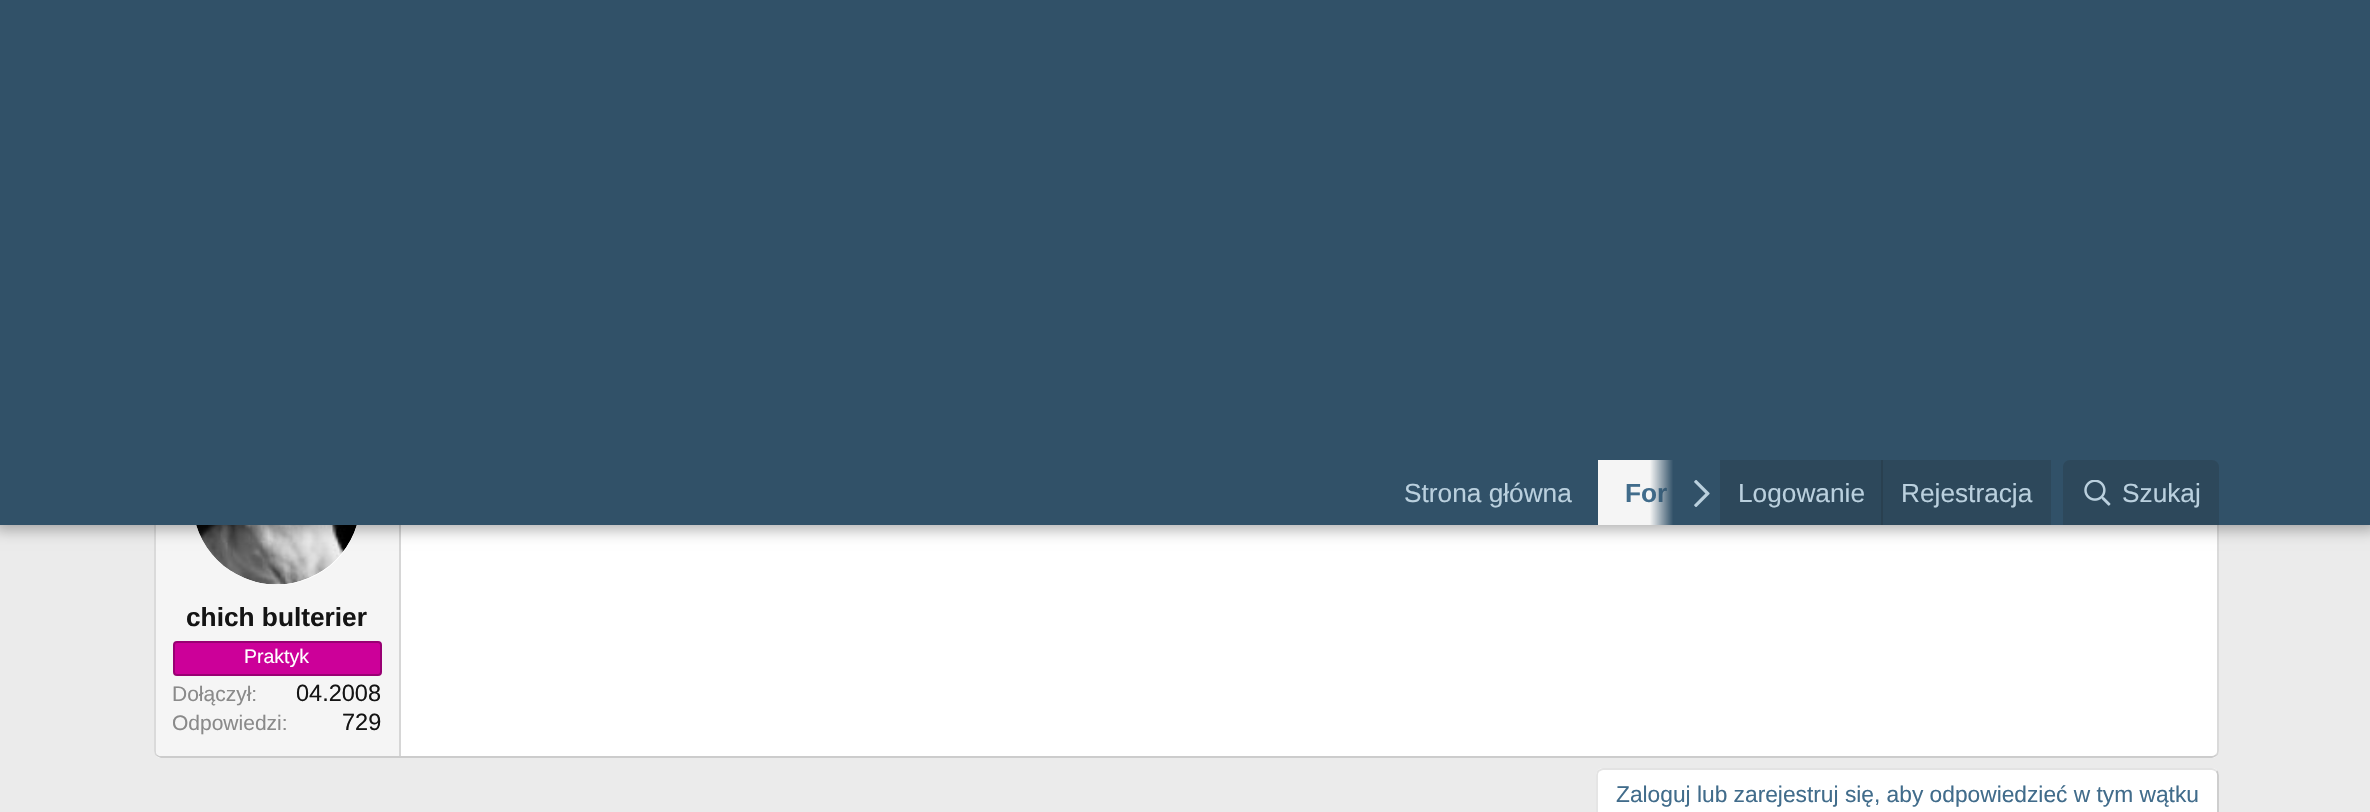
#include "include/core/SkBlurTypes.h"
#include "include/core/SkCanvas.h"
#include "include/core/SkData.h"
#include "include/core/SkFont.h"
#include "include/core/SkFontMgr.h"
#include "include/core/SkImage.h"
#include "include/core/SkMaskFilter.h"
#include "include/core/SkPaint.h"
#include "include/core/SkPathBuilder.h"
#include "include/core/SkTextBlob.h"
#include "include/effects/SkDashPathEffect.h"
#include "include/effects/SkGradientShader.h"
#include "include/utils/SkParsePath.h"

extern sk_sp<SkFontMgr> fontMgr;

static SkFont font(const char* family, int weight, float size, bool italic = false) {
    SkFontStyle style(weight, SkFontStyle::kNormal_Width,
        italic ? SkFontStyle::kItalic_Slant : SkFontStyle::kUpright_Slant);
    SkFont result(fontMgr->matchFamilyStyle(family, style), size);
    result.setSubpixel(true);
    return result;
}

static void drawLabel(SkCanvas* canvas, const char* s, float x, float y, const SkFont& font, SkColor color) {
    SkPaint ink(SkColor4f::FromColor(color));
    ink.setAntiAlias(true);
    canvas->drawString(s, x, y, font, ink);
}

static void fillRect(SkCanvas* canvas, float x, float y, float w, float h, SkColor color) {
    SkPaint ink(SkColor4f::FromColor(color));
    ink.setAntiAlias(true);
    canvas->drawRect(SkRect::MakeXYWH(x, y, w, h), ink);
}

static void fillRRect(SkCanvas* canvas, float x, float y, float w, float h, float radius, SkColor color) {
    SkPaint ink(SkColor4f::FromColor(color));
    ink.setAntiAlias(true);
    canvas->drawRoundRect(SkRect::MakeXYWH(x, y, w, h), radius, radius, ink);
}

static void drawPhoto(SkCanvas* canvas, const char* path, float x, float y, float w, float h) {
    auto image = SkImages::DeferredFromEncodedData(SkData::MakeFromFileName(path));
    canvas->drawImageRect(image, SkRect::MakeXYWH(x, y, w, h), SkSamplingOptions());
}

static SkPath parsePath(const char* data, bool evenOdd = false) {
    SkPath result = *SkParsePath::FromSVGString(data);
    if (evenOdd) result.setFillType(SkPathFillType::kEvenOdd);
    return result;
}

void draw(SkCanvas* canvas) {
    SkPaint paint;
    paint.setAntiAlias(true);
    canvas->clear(0xFFEBEBEB);
    fillRRect(canvas, 154, 397, 2065, 361, 7, 0xFFFFFFFF);
    paint.setStroke(true);
    paint.setStrokeWidth(1.8f);
    paint.setColor(0xFFD6D6D6);
    canvas->drawPath(parsePath("M2216.5 400C2217.5 401 2218 402.5 2218 404V751C2218 752.5 2217.5 754 2216.5 755"), paint);
    paint.setColor(0xFFCCCCCC);
    canvas->drawPath(parsePath("M2216.5 755C2215 756 2213.5 757 2212 757H161C159.5 757 158 756 156.5 755"), paint);
    paint.setColor(0xFFD6D6D6);
    canvas->drawPath(parsePath("M156.5 755C155.5 754 155 752.5 155 751V404C155 402.5 155.5 401 156.5 400"), paint);
    paint.setStroke(false);
    paint.setColor(0xFFF5F5F5);
    canvas->drawPath(parsePath("M161 399H401V756H161C158 756 156 754 156 751V404C156 401 158 399 161 399Z"), paint);
    fillRect(canvas, 399, 525, 2, 231, 0xFFD6D6D6);
    paint.setColor(0xFFFFFFFF);
    canvas->drawCircle(277, 501, 84, paint);
    drawPhoto(canvas, "assets/img3.png", 196, 525, 161, 60);
    paint.setColor(0x4D000000);
    paint.setMaskFilter(SkMaskFilter::MakeBlur(kNormal_SkBlurStyle, 7));
    canvas->drawRect(SkRect::MakeXYWH(-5, -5, 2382, 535), paint);
    paint.setMaskFilter(nullptr);
    fillRect(canvas, 0, 0, 2370, 525, 0xFF315168);
    SkFont font1 = font("Liberation Sans", 400, 26.25f);
    drawLabel(canvas, "Strona główna", 1404, 502, font1, 0xFFBAD0DE);
    fillRect(canvas, 1598, 460, 75, 65, 0xFFF5F5F5);
    SkFont font2 = font("Liberation Sans", 700, 26.25f);
    drawLabel(canvas, "For", 1625, 502, font2, 0xFF416C8B);
    {
        const SkColor colors[] = {0x00315168, 0xFF315168};
        const float stops[] = {0, 0.33f};
        const SkPoint ends[] = {{1650, 493}, {1720, 493}};
        paint.setShader(SkGradientShader::MakeLinear(ends, colors, stops, 2, SkTileMode::kClamp));
        paint.setAlpha(255);
    }
    canvas->drawRect(SkRect::MakeXYWH(1650, 460, 23, 65), paint);
    drawPhoto(canvas, "assets/img1.png", 1694, 480, 16, 27);
    fillRect(canvas, 1720, 460, 331, 65, 0xFF2D485B);
    drawLabel(canvas, "Logowanie", 1738, 502, font1, 0xFFBAD0DE);
    fillRect(canvas, 1881, 460, 2, 65, 0xFF294050);
    drawLabel(canvas, "Rejestracja", 1901, 502, font1, 0xFFBAD0DE);
    paint.setShader(nullptr);
    paint.setColor(0xFF2D485B);
    canvas->drawPath(parsePath("M2070 460H2212C2216 460 2219 463 2219 467V525H2063V467C2063 463 2066 460 2070 460Z"), paint);
    drawPhoto(canvas, "assets/img2.png", 2084, 480, 27, 26);
    drawLabel(canvas, "Szukaj", 2122, 502, font1, 0xFFBAD0DE);
    drawLabel(canvas, "chich bulterier", 186, 626, font2, 0xFF141414);
    paint.setColor(0xFFCC0099);
    canvas->drawRoundRect(SkRect::MakeXYWH(174, 642, 207, 33), 3, 3, paint);
    paint.setStroke(true);
    paint.setStrokeWidth(2);
    paint.setColor(0xFF990073);
    canvas->drawRoundRect(SkRect::MakeXYWH(174, 642, 207, 33), 3, 3, paint);
    SkFont font3 = font("Liberation Sans", 400, 19.5f);
    drawLabel(canvas, "Praktyk", 244, 663, font3, 0xFFFFFFFF);
    SkFont font4 = font("Liberation Sans", 400, 21);
    drawLabel(canvas, "Dołączył:", 172, 701, font4, 0xFF8A8A8A);
    SkFont font5 = font("Liberation Sans", 400, 23.5f);
    drawLabel(canvas, "04.2008", 296, 701, font5, 0xFF141414);
    drawLabel(canvas, "Odpowiedzi:", 172, 730, font4, 0xFF8A8A8A);
    drawLabel(canvas, "729", 342, 730, font5, 0xFF141414);
    fillRRect(canvas, 1596, 768, 623, 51, 7, 0xFFFFFFFF);
    paint.setStrokeWidth(1.8f);
    paint.setColor(0xFFC9C9C9);
    canvas->drawPath(parsePath("M2216.5 771C2217.5 772 2218 773.5 2218 775V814C2218 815.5 2217.5 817 2216.5 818C2215 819 2213.5 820 2212 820H1603C1601.5 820 1600 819 1598.5 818"), paint);
    paint.setColor(0xFFE3E3E3);
    canvas->drawPath(parsePath("M1598.5 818C1597.5 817 1597 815.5 1597 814V775C1597 773.5 1597.5 772 1598.5 771C1600 770 1601.5 769 1603 769H2212C2213.5 769 2215 770 2216.5 771"), paint);
    SkFont font6 = font("Liberation Sans", 400, 22.75f);
    drawLabel(canvas, "Zaloguj lub zarejestruj się, aby odpowiedzieć w tym wątku", 1616, 802, font6, 0xFF416C8B);
}
